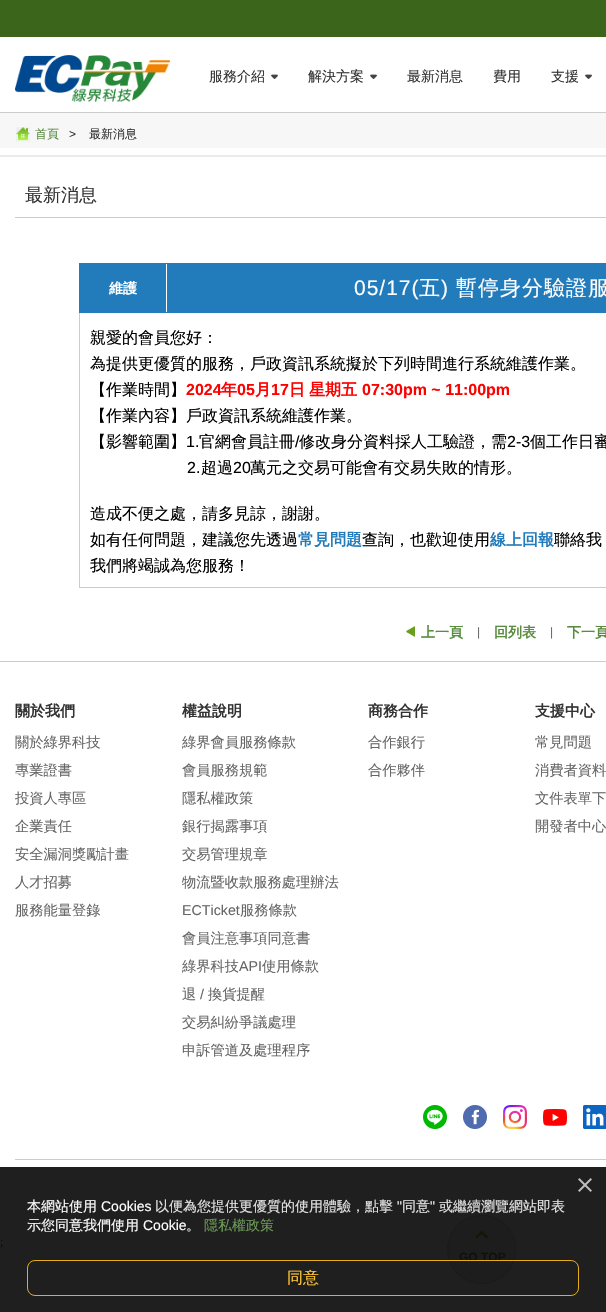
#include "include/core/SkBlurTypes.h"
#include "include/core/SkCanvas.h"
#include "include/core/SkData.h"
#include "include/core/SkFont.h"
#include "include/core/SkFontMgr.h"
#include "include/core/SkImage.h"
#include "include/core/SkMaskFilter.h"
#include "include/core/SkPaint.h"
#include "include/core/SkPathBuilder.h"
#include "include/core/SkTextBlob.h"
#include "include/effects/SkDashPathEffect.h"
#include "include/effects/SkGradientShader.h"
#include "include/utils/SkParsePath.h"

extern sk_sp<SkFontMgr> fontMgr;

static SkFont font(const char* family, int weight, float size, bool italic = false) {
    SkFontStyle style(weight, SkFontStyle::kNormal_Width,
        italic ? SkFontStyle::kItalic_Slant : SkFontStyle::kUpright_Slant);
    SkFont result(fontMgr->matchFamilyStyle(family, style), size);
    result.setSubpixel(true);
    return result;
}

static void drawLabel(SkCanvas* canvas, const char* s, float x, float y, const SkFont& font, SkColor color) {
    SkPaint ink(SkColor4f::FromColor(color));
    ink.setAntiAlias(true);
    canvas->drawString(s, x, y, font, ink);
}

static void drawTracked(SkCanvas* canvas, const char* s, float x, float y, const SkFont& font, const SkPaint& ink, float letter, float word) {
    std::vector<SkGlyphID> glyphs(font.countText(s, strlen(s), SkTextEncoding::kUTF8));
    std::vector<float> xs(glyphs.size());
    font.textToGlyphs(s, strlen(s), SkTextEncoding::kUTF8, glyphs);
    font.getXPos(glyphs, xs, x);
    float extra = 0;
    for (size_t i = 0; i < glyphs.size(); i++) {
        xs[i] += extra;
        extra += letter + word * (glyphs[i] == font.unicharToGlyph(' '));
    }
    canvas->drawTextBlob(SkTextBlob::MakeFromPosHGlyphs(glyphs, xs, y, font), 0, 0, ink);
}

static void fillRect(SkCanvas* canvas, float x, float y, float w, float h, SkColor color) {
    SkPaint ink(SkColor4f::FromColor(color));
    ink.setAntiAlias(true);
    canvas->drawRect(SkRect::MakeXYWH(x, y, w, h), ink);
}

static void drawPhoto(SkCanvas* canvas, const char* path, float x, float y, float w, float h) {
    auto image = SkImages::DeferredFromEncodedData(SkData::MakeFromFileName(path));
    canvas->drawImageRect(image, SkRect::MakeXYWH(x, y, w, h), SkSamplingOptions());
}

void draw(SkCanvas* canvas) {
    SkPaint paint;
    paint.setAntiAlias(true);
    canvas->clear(0xFFFFFFFF);
    fillRect(canvas, 0, 1167, 606, 145, 0xFF1F1F1F);
    fillRect(canvas, 0, 0, 606, 37, 0xFF3C651C);
    fillRect(canvas, 0, 112, 606, 1, 0xFFCCCCCC);
    drawPhoto(canvas, "assets/img1.png", 15, 55, 155, 47);
    SkFont font1 = font("WenQuanYi Zen Hei", 500, 14);
    drawLabel(canvas, "服務介紹", 209, 81, font1, 0xFF333333);
    drawPhoto(canvas, "assets/img2.png", 271, 74, 7, 5);
    drawLabel(canvas, "解決方案", 308, 81, font1, 0xFF333333);
    drawPhoto(canvas, "assets/img2.png", 370, 74, 7, 5);
    drawLabel(canvas, "最新消息", 407, 81, font1, 0xFF333333);
    drawLabel(canvas, "費用", 493, 81, font1, 0xFF333333);
    drawLabel(canvas, "支援", 551, 81, font1, 0xFF333333);
    drawPhoto(canvas, "assets/img2.png", 585, 74, 7, 5);
    fillRect(canvas, 0, 113, 606, 35, 0xFFF7F7F7);
    drawPhoto(canvas, "assets/img3.png", 16, 127, 14, 15);
    SkFont font2 = font("WenQuanYi Zen Hei", 500, 12);
    drawLabel(canvas, "首頁", 35, 138, font2, 0xFF588C3F);
    SkFont font3 = font("Liberation Sans", 400, 12);
    drawLabel(canvas, ">", 69, 138, font3, 0xFF333333);
    drawLabel(canvas, "最新消息", 89, 138, font2, 0xFF333333);
    fillRect(canvas, 0, 155, 606, 2, 0xFFEBEBEB);
    fillRect(canvas, 15, 217, 591, 1, 0xFFCCCCCC);
    SkFont font4 = font("WenQuanYi Zen Hei", 500, 18);
    drawLabel(canvas, "最新消息", 25, 201, font4, 0xFF333333);
    fillRect(canvas, 79, 264, 87, 48, 0xFF227BBB);
    fillRect(canvas, 166, 263, 440, 1, 0xFF227BBB);
    fillRect(canvas, 166, 312, 440, 1, 0xFF227BBB);
    fillRect(canvas, 166, 263, 1, 50, 0xFFFFFFFF);
    fillRect(canvas, 79, 263, 88, 1, 0xFF227BBB);
    fillRect(canvas, 79, 587, 527, 1, 0xFFCCCCCC);
    fillRect(canvas, 79, 312, 1, 276, 0xFFCCCCCC);
    fillRect(canvas, 79, 312, 88, 1, 0xFF227BBB);
    SkFont font5 = font("WenQuanYi Zen Hei", 700, 14);
    drawLabel(canvas, "維護", 109, 293, font5, 0xFFFFFFFF);
    fillRect(canvas, 167, 264, 439, 48, 0xFF227BBB);
    SkFont font6 = font("Liberation Sans", 400, 21);
    paint.setColor(0xFFFFFFFF);
    drawTracked(canvas, "05/17(", 354, 295, font6, paint, 1, 0);
    SkFont font7 = font("WenQuanYi Zen Hei", 500, 21);
    drawTracked(canvas, "五", 419, 295, font7, paint, 1, 0);
    drawTracked(canvas, ")", 441, 295, font6, paint, 1, 0);
    drawTracked(canvas, "暫停身分驗證服", 456, 295, font7, paint, 1, 0);
    SkFont font8 = font("WenQuanYi Zen Hei", 500, 16);
    drawLabel(canvas, "親愛的會員您好：", 90, 343, font8, 0xFF000000);
    drawLabel(canvas, "為提供更優質的服務，戶政資訊系統擬於下列時間進行系統維護作業。", 90, 369, font8, 0xFF000000);
    drawLabel(canvas, "【作業時間】", 90, 395, font8, 0xFF000000);
    SkFont font9 = font("Liberation Sans", 700, 16);
    drawLabel(canvas, "2024", 186, 395, font9, 0xFFFF0000);
    SkFont font10 = font("WenQuanYi Zen Hei", 700, 16);
    drawLabel(canvas, "年", 221, 395, font10, 0xFFFF0000);
    drawLabel(canvas, "05", 237, 395, font9, 0xFFFF0000);
    drawLabel(canvas, "月", 255, 395, font10, 0xFFFF0000);
    drawLabel(canvas, "17", 271, 395, font9, 0xFFFF0000);
    drawLabel(canvas, "日", 289, 395, font10, 0xFFFF0000);
    drawLabel(canvas, "星期五", 309, 395, font10, 0xFFFF0000);
    drawLabel(canvas, "07:30pm ~ 11:00pm", 362, 395, font9, 0xFFFF0000);
    drawLabel(canvas, "【作業內容】戶政資訊系統維護作業。", 90, 421, font8, 0xFF000000);
    drawLabel(canvas, "【影響範圍】", 90, 447, font8, 0xFF000000);
    SkFont font11 = font("Liberation Sans", 400, 16);
    drawLabel(canvas, "1.", 186, 447, font11, 0xFF000000);
    drawLabel(canvas, "官網會員註冊", 199, 447, font8, 0xFF000000);
    drawLabel(canvas, "/", 295, 447, font11, 0xFF000000);
    drawLabel(canvas, "修改身分資料採人工驗證，需", 299, 447, font8, 0xFF000000);
    drawLabel(canvas, "2-3", 507, 447, font11, 0xFF000000);
    drawLabel(canvas, "個工作日審", 530, 447, font8, 0xFF000000);
    drawLabel(canvas, "2.", 187, 473, font11, 0xFF000000);
    drawLabel(canvas, "超過", 201, 473, font8, 0xFF000000);
    drawLabel(canvas, "20", 233, 473, font11, 0xFF000000);
    drawLabel(canvas, "萬元之交易可能會有交易失敗的情形。", 250, 473, font8, 0xFF000000);
    drawLabel(canvas, "造成不便之處，請多見諒，謝謝。", 90, 519, font8, 0xFF000000);
    drawLabel(canvas, "如有任何問題，建議您先透過", 90, 545, font8, 0xFF000000);
    drawLabel(canvas, "常見問題", 298, 545, font10, 0xFF227BBB);
    drawLabel(canvas, "查詢，也歡迎使用", 362, 545, font8, 0xFF000000);
    drawLabel(canvas, "線上回報", 490, 545, font10, 0xFF227BBB);
    drawLabel(canvas, "聯絡我", 554, 545, font8, 0xFF000000);
    drawLabel(canvas, "我們將竭誠為您服務！", 90, 571, font8, 0xFF000000);
    drawPhoto(canvas, "assets/img4.png", 406, 626, 9, 11);
    drawLabel(canvas, "上一頁", 421, 637, font5, 0xFF588C3F);
    drawLabel(canvas, "|", 477, 636, font3, 0xFF666666);
    drawLabel(canvas, "回列表", 494, 637, font5, 0xFF588C3F);
    drawLabel(canvas, "|", 550, 636, font3, 0xFF666666);
    drawLabel(canvas, "下一頁", 567, 637, font5, 0xFF588C3F);
    fillRect(canvas, 0, 661, 606, 1, 0xFFCCCCCC);
    SkFont font12 = font("WenQuanYi Zen Hei", 700, 15);
    drawLabel(canvas, "關於我們", 15, 716, font12, 0xFF333333);
    SkFont font13 = font("WenQuanYi Zen Hei", 500, 14.25f);
    drawLabel(canvas, "關於綠界科技", 15, 747, font13, 0xFF666666);
    drawLabel(canvas, "專業證書", 15, 775, font13, 0xFF666666);
    drawLabel(canvas, "投資人專區", 15, 803, font13, 0xFF666666);
    drawLabel(canvas, "企業責任", 15, 831, font13, 0xFF666666);
    drawLabel(canvas, "安全漏洞獎勵計畫", 15, 859, font13, 0xFF666666);
    drawLabel(canvas, "人才招募", 15, 887, font13, 0xFF666666);
    drawLabel(canvas, "服務能量登錄", 15, 915, font13, 0xFF666666);
    drawLabel(canvas, "權益說明", 182, 716, font12, 0xFF333333);
    canvas->save();
    canvas->clipRect(SkRect::MakeXYWH(182, 724, 166, 341));
    drawLabel(canvas, "綠界會員服務條款", 182, 747, font13, 0xFF666666);
    canvas->restore();
    drawLabel(canvas, "會員服務規範", 182, 775, font13, 0xFF666666);
    drawLabel(canvas, "隱私權政策", 182, 803, font13, 0xFF666666);
    drawLabel(canvas, "銀行揭露事項", 182, 831, font13, 0xFF666666);
    drawLabel(canvas, "交易管理規章", 182, 859, font13, 0xFF666666);
    canvas->save();
    canvas->clipRect(SkRect::MakeXYWH(182, 724, 166, 341));
    drawLabel(canvas, "物流暨收款服務處理辦法", 182, 887, font13, 0xFF666666);
    canvas->restore();
    SkFont font14 = font("Liberation Sans", 400, 14.25f);
    drawLabel(canvas, "ECTicket", 182, 915, font14, 0xFF666666);
    drawLabel(canvas, "服務條款", 240, 915, font13, 0xFF666666);
    drawLabel(canvas, "會員注意事項同意書", 182, 943, font13, 0xFF666666);
    canvas->save();
    canvas->clipRect(SkRect::MakeXYWH(182, 724, 166, 341));
    drawLabel(canvas, "綠界科技", 182, 971, font13, 0xFF666666);
    canvas->restore();
    drawLabel(canvas, "API", 239, 971, font14, 0xFF666666);
    drawLabel(canvas, "使用條款", 262, 971, font13, 0xFF666666);
    drawLabel(canvas, "退", 182, 999, font13, 0xFF666666);
    drawLabel(canvas, "/", 200, 999, font14, 0xFF666666);
    drawLabel(canvas, "換貨提醒", 208, 999, font13, 0xFF666666);
    drawLabel(canvas, "交易糾紛爭議處理", 182, 1027, font13, 0xFF666666);
    drawLabel(canvas, "申訴管道及處理程序", 182, 1055, font13, 0xFF666666);
    drawLabel(canvas, "商務合作", 368, 716, font12, 0xFF333333);
    drawLabel(canvas, "合作銀行", 368, 747, font13, 0xFF666666);
    drawLabel(canvas, "合作夥伴", 368, 775, font13, 0xFF666666);
    drawLabel(canvas, "支援中心", 535, 716, font12, 0xFF333333);
    drawLabel(canvas, "常見問題", 535, 747, font13, 0xFF666666);
    drawLabel(canvas, "消費者資料", 535, 775, font13, 0xFF666666);
    drawLabel(canvas, "文件表單下", 535, 803, font13, 0xFF666666);
    drawLabel(canvas, "開發者中心", 535, 831, font13, 0xFF666666);
    drawPhoto(canvas, "assets/img5.png", 423, 1105, 24, 24);
    drawPhoto(canvas, "assets/img6.png", 463, 1105, 24, 24);
    drawPhoto(canvas, "assets/img7.png", 503, 1105, 24, 24);
    drawPhoto(canvas, "assets/img8.png", 543, 1109, 24, 17);
    drawPhoto(canvas, "assets/img9.png", 583, 1105, 23, 24);
    fillRect(canvas, 15, 1159, 591, 1, 0xFFCCCCCC);
    drawPhoto(canvas, "assets/img10.png", 447, 1215, 69, 69);
    drawPhoto(canvas, "assets/img11.png", 475, 1212, 14, 27);
    SkFont font15 = font("Liberation Sans", 700, 12);
    drawLabel(canvas, "GO TOP", 459, 1261, font15, 0xFF0C120A);
    drawLabel(canvas, ";", 0, 1246, font3, 0xFF060606);
    drawPhoto(canvas, "assets/img12.png", 578, 1178, 14, 14);
    drawLabel(canvas, "本網站使用", 27, 1211, font1, 0xFFFFFFFF);
    SkFont font16 = font("Liberation Sans", 400, 14);
    drawLabel(canvas, "Cookies", 101, 1211, font16, 0xFFFFFFFF);
    drawLabel(canvas, "以便為您提供更優質的使用體驗，點擊", 155, 1211, font1, 0xFFE4E4E4);
    drawLabel(canvas, "\"", 397, 1211, font16, 0xFFE4E4E4);
    drawLabel(canvas, "同意", 402, 1211, font1, 0xFFE4E4E4);
    drawLabel(canvas, "\"", 430, 1211, font16, 0xFFE4E4E4);
    drawLabel(canvas, "或繼續瀏覽網站即表", 439, 1211, font1, 0xFFE4E4E4);
    drawLabel(canvas, "示您同意我們使用", 27, 1230, font1, 0xFFFFFFFF);
    drawLabel(canvas, "Cookie", 143, 1230, font16, 0xFFFFFFFF);
    drawLabel(canvas, "。", 186, 1230, font1, 0xFFFFFFFF);
    drawLabel(canvas, "隱私權政策", 204, 1230, font1, 0xFF6C9A56);
    paint.setStroke(true);
    paint.setStrokeWidth(1);
    paint.setColor(0xE0FFBF1A);
    canvas->drawRoundRect(SkRect::MakeXYWH(27.5f, 1260.5f, 551, 35), 7.5f, 7.5f, paint);
    drawLabel(canvas, "同意", 287, 1283, font8, 0xFFFFC735);
}
